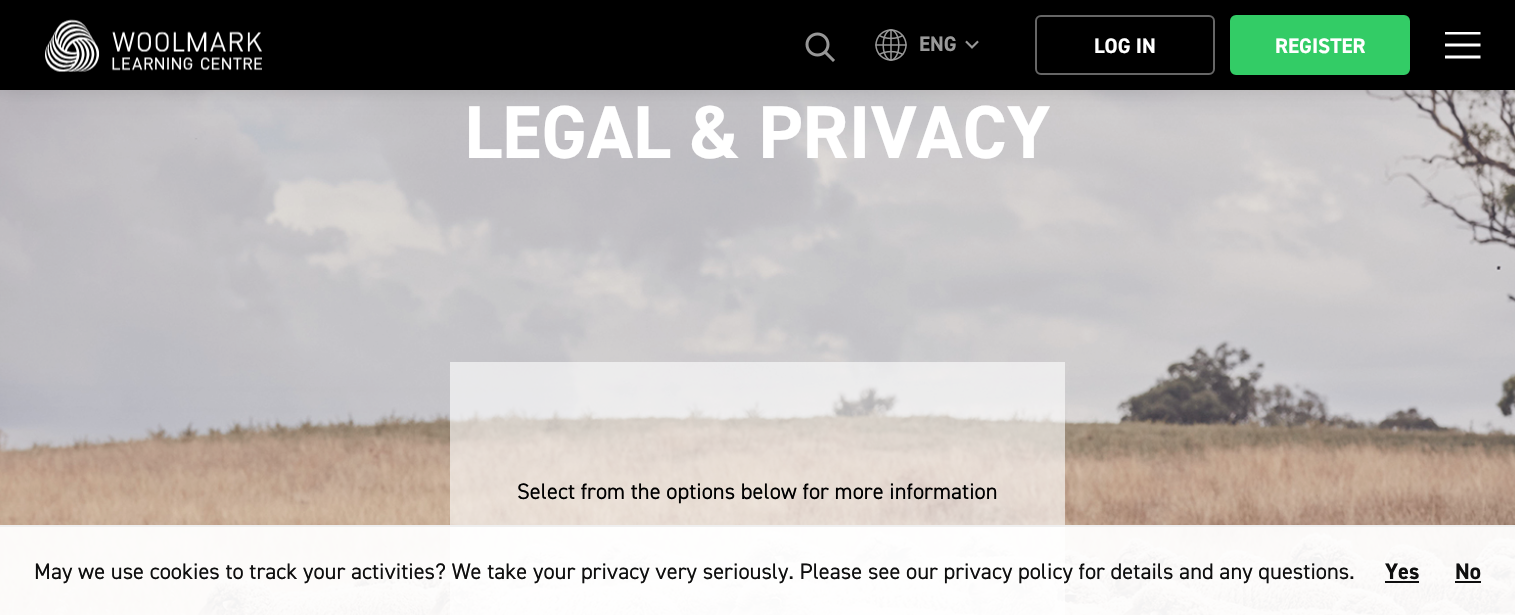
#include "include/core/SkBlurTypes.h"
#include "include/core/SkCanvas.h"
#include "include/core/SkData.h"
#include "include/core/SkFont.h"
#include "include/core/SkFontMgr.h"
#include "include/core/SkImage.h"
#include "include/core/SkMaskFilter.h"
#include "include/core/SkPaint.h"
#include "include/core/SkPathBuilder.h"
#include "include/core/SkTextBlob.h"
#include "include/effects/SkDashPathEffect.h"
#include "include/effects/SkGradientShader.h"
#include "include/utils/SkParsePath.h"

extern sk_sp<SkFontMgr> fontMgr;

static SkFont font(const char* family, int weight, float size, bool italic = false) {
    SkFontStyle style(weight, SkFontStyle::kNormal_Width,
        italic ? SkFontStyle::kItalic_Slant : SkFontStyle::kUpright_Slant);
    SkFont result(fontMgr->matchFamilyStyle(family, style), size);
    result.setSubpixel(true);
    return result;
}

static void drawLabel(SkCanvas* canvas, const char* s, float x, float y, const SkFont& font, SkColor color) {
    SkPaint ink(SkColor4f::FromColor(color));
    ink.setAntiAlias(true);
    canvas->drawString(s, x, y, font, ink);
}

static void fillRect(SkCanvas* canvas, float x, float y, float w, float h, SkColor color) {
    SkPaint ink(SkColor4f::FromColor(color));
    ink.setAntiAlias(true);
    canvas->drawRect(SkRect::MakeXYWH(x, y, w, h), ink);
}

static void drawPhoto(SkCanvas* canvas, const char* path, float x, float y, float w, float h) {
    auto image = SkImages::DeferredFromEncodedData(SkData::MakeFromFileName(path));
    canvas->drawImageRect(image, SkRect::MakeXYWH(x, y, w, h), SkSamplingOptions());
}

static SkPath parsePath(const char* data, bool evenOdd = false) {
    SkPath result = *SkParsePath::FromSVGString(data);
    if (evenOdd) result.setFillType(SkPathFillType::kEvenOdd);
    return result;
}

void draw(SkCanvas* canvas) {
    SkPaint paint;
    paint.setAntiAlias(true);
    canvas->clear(0xFFFFFFFF);
    drawPhoto(canvas, "assets/img5.png", 0, 90, 1515, 525);
    paint.setColor(0x1A000000);
    paint.setMaskFilter(SkMaskFilter::MakeBlur(kNormal_SkBlurStyle, 7.5f));
    canvas->drawRect(SkRect::MakeXYWH(0, 3, 1515, 90), paint);
    paint.setMaskFilter(nullptr);
    fillRect(canvas, 0, 0, 1515, 90, 0xFF000000);
    drawPhoto(canvas, "assets/img1.png", 45, 19, 217, 53);
    drawPhoto(canvas, "assets/img2.png", 805, 32, 30, 30);
    drawPhoto(canvas, "assets/img3.png", 875, 29, 32, 32);
    SkFont font1 = font("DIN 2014", 700, 21);
    drawLabel(canvas, "ENG", 919, 51, font1, 0xFF999999);
    drawPhoto(canvas, "assets/img4.png", 965, 40, 14, 9);
    paint.setStroke(true);
    paint.setStrokeWidth(2);
    paint.setColor(0xFF666666);
    canvas->drawRoundRect(SkRect::MakeXYWH(1036, 16, 178, 58), 5, 5, paint);
    drawLabel(canvas, "LOG IN", 1094, 53, font1, 0xFFFFFFFF);
    paint.setStroke(false);
    paint.setColor(0xFF33CC66);
    canvas->drawRoundRect(SkRect::MakeXYWH(1231, 16, 178, 58), 5, 5, paint);
    paint.setStroke(true);
    canvas->drawRoundRect(SkRect::MakeXYWH(1231, 16, 178, 58), 5, 5, paint);
    drawLabel(canvas, "REGISTER", 1275, 53, font1, 0xFFFFFFFF);
    canvas->save();
    canvas->clipRect(SkRect::MakeXYWH(1445, 32, 36, 27));
    paint.setStroke(false);
    paint.setColor(0xFFFFFFFF);
    canvas->drawPath(parsePath("M1444.5 43.5H1480.5V46.5H1444.5ZM1444.5 55.5H1480.5V58.5H1444.5ZM1444.5 31.5H1480.5V34.5H1444.5Z", true), paint);
    canvas->restore();
    SkFont font2 = font("DIN 2014", 700, 75);
    drawLabel(canvas, "LEGAL & PRIVACY", 464, 158, font2, 0xFFFFFFFF);
    fillRect(canvas, 450, 362, 615, 253, 0x99FFFFFF);
    SkFont font3 = font("DIN 2014", 400, 22.5f);
    drawLabel(canvas, "Select from the options below for more information", 517, 499, font3, 0xFF000000);
    fillRect(canvas, 0, 525, 1515, 90, 0xF0FFFFFF);
    fillRect(canvas, 0, 525, 1515, 2, 0xF0EEEEEE);
    drawLabel(canvas, "May we use cookies to track your activities? We take your privacy very seriously. Please see our privacy policy for details and any questions.", 34, 579, font3, 0xFF0F0F0F);
    SkFont font4 = font("DIN 2014", 700, 22.5f);
    drawLabel(canvas, "Yes", 1385, 579, font4, 0xFF0F0F0F);
    fillRect(canvas, 1385, 581, 34, 2, 0xF0000000);
    drawLabel(canvas, "No", 1455, 579, font4, 0xFF0F0F0F);
    fillRect(canvas, 1455, 581, 26, 2, 0xF0000000);
}
